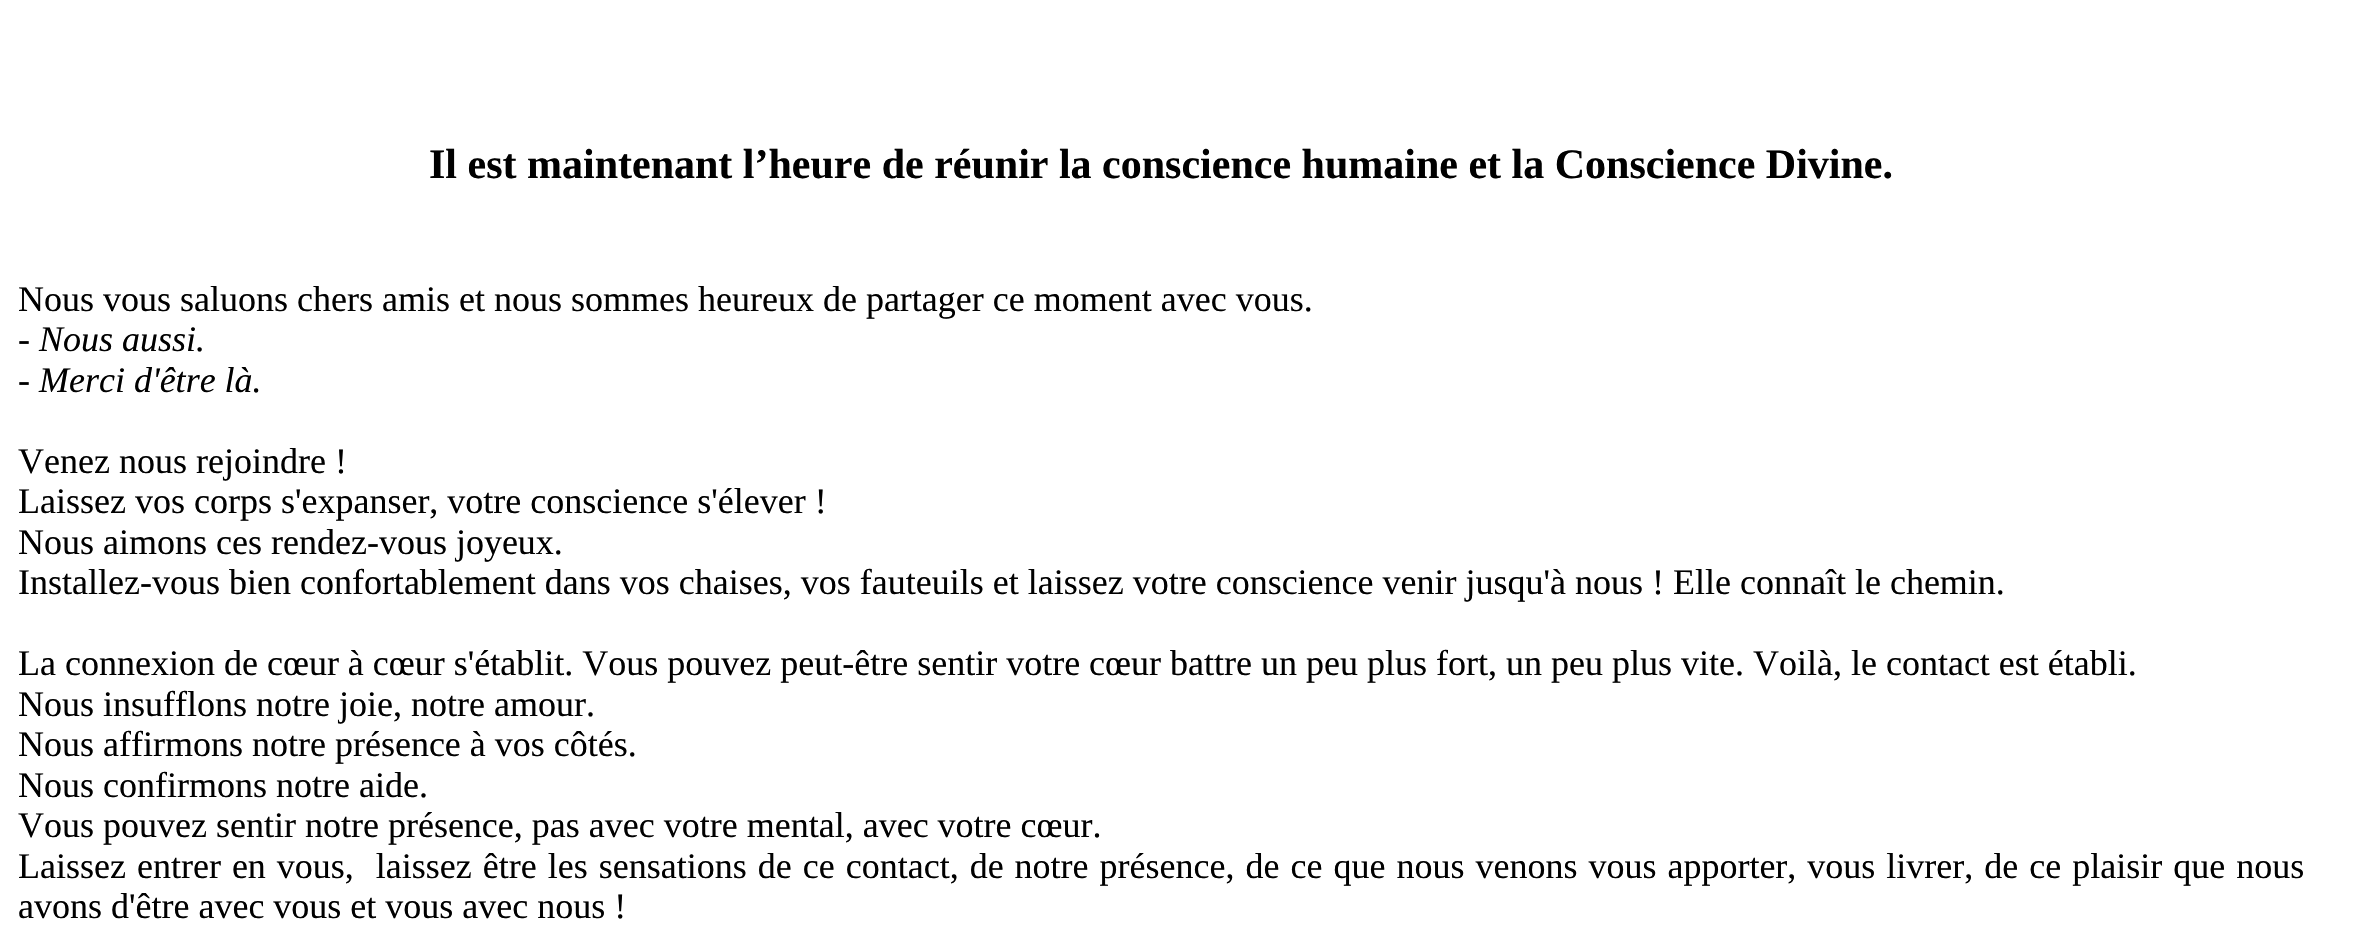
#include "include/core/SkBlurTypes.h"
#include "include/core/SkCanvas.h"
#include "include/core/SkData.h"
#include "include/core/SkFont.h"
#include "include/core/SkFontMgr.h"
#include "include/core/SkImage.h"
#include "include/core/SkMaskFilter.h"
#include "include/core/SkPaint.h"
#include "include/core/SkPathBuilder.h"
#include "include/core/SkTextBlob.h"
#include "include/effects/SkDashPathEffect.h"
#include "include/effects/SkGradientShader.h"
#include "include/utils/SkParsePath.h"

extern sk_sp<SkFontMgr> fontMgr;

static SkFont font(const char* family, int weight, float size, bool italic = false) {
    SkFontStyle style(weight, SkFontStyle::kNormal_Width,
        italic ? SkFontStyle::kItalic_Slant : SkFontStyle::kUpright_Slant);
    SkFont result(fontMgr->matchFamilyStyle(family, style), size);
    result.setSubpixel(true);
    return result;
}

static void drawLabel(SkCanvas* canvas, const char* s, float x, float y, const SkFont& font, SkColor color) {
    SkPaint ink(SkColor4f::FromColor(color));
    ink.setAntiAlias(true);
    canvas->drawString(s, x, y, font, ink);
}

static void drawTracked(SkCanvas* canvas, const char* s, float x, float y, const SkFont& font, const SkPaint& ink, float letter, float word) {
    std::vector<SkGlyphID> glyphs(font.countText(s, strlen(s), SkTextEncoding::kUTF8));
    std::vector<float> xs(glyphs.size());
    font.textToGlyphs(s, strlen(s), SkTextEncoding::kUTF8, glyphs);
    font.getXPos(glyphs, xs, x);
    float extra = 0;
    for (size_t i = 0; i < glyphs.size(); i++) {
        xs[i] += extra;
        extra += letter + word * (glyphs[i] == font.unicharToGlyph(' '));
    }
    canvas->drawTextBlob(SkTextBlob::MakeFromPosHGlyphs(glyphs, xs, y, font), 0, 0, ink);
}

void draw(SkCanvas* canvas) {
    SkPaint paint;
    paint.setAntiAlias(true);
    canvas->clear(0xFFFFFFFF);
    SkFont font1 = font("Liberation Serif", 700, 42);
    drawLabel(canvas, "Il est maintenant l’heure de réunir la conscience humaine et la Conscience Divine.", 429, 178, font1, 0xFF000000);
    SkFont font2 = font("Liberation Serif", 400, 36);
    drawLabel(canvas, "Nous vous saluons chers amis et nous sommes heureux de partager ce moment avec vous.", 18, 311, font2, 0xFF000000);
    SkFont font3 = font("Liberation Serif", 400, 36, true);
    drawLabel(canvas, "- Nous aussi.", 18, 351, font3, 0xFF000000);
    drawLabel(canvas, "- Merci d'être là.", 18, 392, font3, 0xFF000000);
    drawLabel(canvas, "Venez nous rejoindre !", 18, 473, font2, 0xFF000000);
    drawLabel(canvas, "Laissez vos corps s'expanser, votre conscience s'élever !", 18, 513, font2, 0xFF000000);
    drawLabel(canvas, "Nous aimons ces rendez-vous joyeux.", 18, 554, font2, 0xFF000000);
    drawLabel(canvas, "Installez-vous bien confortablement dans vos chaises, vos fauteuils et laissez votre conscience venir jusqu'à nous ! Elle connaît le chemin.", 18, 594, font2, 0xFF000000);
    drawLabel(canvas, "La connexion de cœur à cœur s'établit. Vous pouvez peut-être sentir votre cœur battre un peu plus fort, un peu plus vite. Voilà, le contact est établi.", 18, 675, font2, 0xFF000000);
    drawLabel(canvas, "Nous insufflons notre joie, notre amour.", 18, 716, font2, 0xFF000000);
    drawLabel(canvas, "Nous affirmons notre présence à vos côtés.", 18, 756, font2, 0xFF000000);
    drawLabel(canvas, "Nous confirmons notre aide.", 18, 797, font2, 0xFF000000);
    drawLabel(canvas, "Vous pouvez sentir notre présence, pas avec votre mental, avec votre cœur.", 18, 837, font2, 0xFF000000);
    paint.setColor(0xFF000000);
    drawTracked(canvas, "Laissez entrer en vous,  laissez être les sensations de ce contact, de notre présence, de ce que nous venons vous apporter, vous livrer, de ce plaisir que nous", 18, 878, font2, paint, 0, 2);
    drawLabel(canvas, "avons d'être avec vous et vous avec nous !", 18, 918, font2, 0xFF000000);
}
